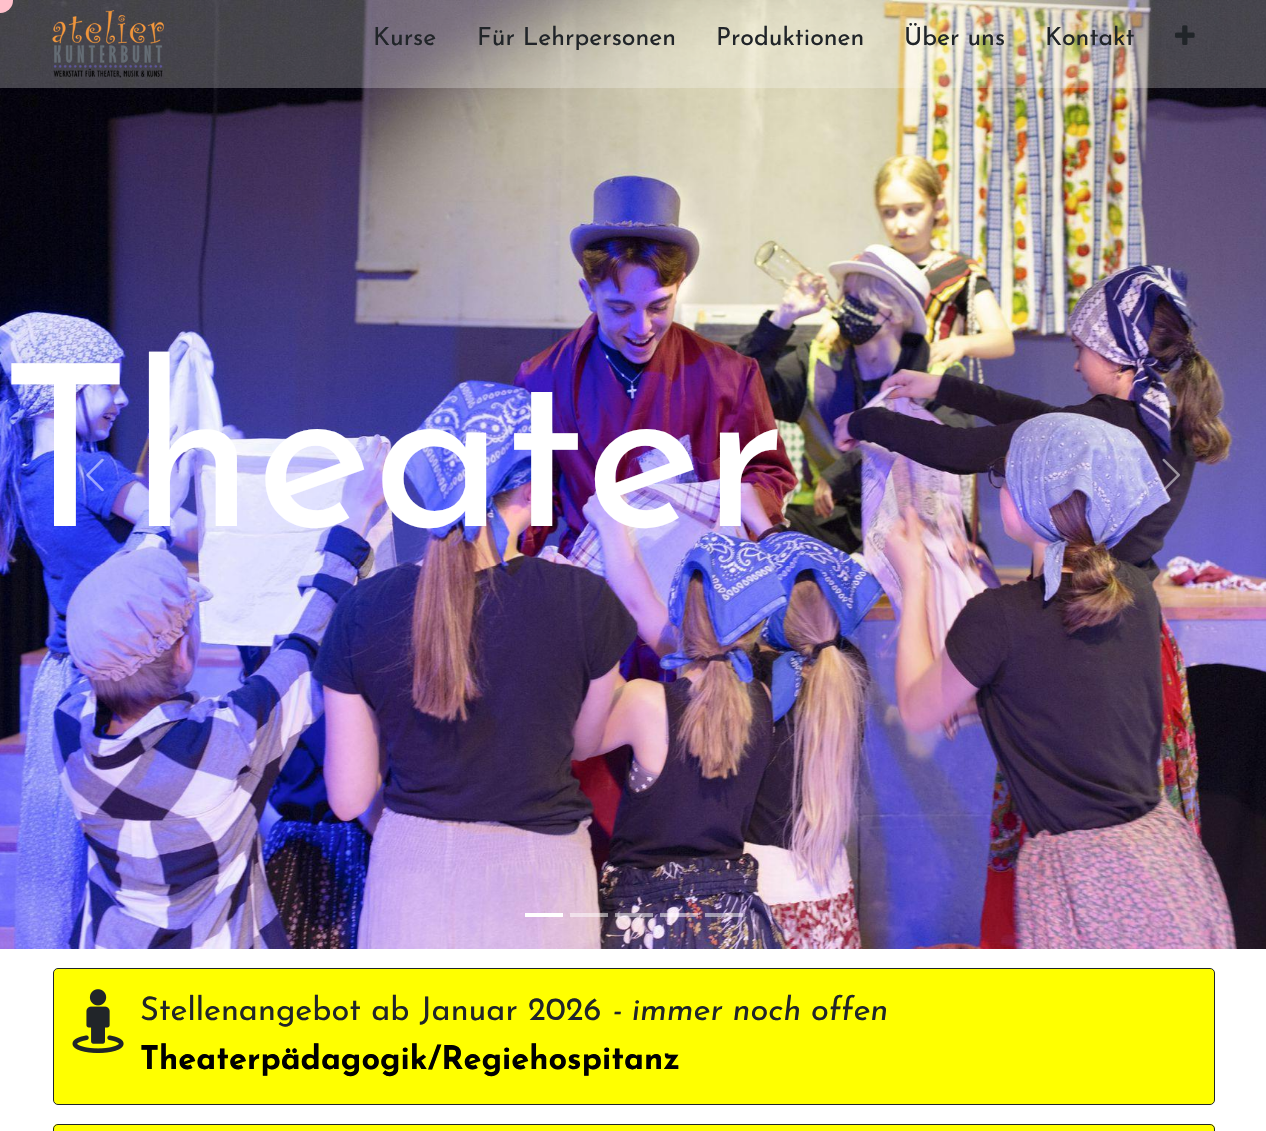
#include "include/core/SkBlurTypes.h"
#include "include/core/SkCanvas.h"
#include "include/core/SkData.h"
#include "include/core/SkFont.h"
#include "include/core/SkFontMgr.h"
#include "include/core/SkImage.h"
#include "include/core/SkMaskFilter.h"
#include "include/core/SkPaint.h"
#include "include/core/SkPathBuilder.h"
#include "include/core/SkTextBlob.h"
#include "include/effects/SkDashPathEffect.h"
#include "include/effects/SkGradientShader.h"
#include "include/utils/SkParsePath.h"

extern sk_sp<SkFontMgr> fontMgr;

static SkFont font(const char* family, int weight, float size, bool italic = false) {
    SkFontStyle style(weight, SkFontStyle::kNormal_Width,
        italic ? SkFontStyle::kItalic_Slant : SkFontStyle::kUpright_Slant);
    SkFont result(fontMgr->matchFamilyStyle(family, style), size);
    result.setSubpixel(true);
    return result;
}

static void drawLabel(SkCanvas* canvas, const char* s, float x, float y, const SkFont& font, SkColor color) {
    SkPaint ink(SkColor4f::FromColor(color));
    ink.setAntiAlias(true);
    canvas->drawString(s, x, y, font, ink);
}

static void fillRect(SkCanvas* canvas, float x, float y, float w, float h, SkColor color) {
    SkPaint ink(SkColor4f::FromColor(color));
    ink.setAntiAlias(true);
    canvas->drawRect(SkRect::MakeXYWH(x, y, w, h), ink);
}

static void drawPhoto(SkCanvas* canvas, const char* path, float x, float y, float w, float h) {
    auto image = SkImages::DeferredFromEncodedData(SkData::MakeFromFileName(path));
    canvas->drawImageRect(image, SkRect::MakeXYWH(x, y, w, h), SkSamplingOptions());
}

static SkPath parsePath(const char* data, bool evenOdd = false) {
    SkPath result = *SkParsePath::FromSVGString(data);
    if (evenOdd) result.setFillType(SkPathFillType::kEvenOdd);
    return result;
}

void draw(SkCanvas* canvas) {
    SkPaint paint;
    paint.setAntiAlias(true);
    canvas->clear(0xFFFFFFFF);
    drawPhoto(canvas, "assets/img3.png", 0, 0, 1266, 949);
    fillRect(canvas, 0, 0, 1266, 88, 0x40FFFFFF);
    paint.setColor(0xFFFFC0CB);
    canvas->drawCircle(0.5f, 0.5f, 12.5f, paint);
    drawPhoto(canvas, "assets/img1.png", 52, 10, 112, 68);
    SkFont font1 = font("Josefin Sans", 400, 25);
    drawLabel(canvas, "Kurse", 373, 45, font1, 0xFF212529);
    drawLabel(canvas, "Für Lehrpersonen", 477, 45, font1, 0xFF212529);
    drawLabel(canvas, "Produktionen", 716, 45, font1, 0xFF212529);
    drawLabel(canvas, "Über uns", 904, 45, font1, 0xFF212529);
    drawLabel(canvas, "Kontakt", 1045, 45, font1, 0xFF212529);
    drawPhoto(canvas, "assets/img2.png", 1175, 25, 20, 20);
    drawPhoto(canvas, "assets/img4.png", 86, 458, 18, 34);
    SkFont font2 = font("Josefin Sans", 400, 225);
    drawLabel(canvas, "Theater", 0, 526, font2, 0xFFFFFFFF);
    drawPhoto(canvas, "assets/img5.png", 1162, 458, 18, 34);
    fillRect(canvas, 525, 913, 38, 4, 0xFFFFFFFF);
    fillRect(canvas, 570, 913, 38, 4, 0x80FFFFFF);
    fillRect(canvas, 615, 913, 38, 4, 0x80FFFFFF);
    fillRect(canvas, 660, 913, 38, 4, 0x80FFFFFF);
    fillRect(canvas, 705, 913, 38, 4, 0x80FFFFFF);
    paint.setColor(0xFFFFFF00);
    canvas->drawRoundRect(SkRect::MakeXYWH(53.5f, 968.5f, 1161, 136), 4.5f, 4.5f, paint);
    paint.setStroke(true);
    paint.setStrokeWidth(1);
    paint.setColor(0xFF212529);
    canvas->drawRoundRect(SkRect::MakeXYWH(53.5f, 968.5f, 1161, 136), 4.5f, 4.5f, paint);
    drawPhoto(canvas, "assets/img6.png", 72, 989, 52, 64);
    SkFont font3 = font("Josefin Sans", 400, 32.5f);
    drawLabel(canvas, "Stellenangebot ab Januar 2026", 140, 1020, font3, 0xFF212529);
    SkFont font4 = font("Josefin Sans", 400, 32.5f, true);
    drawLabel(canvas, "- immer noch offen", 612, 1020, font4, 0xFF212529);
    SkFont font5 = font("Josefin Sans", 700, 32.5f);
    drawLabel(canvas, "Theaterpädagogik/Regiehospitanz", 140, 1069, font5, 0xFF000000);
    paint.setStroke(false);
    paint.setColor(0xFFFFFF00);
    canvas->drawPath(parsePath("M58 1124H1210C1213 1124 1215 1126 1215 1129V1131H53V1129C53 1126 55 1124 58 1124Z"), paint);
    paint.setStroke(true);
    paint.setColor(0xFF212529);
    canvas->drawRoundRect(SkRect::MakeXYWH(53.5f, 1124.5f, 1161, 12), 4.5f, 4.5f, paint);
}
